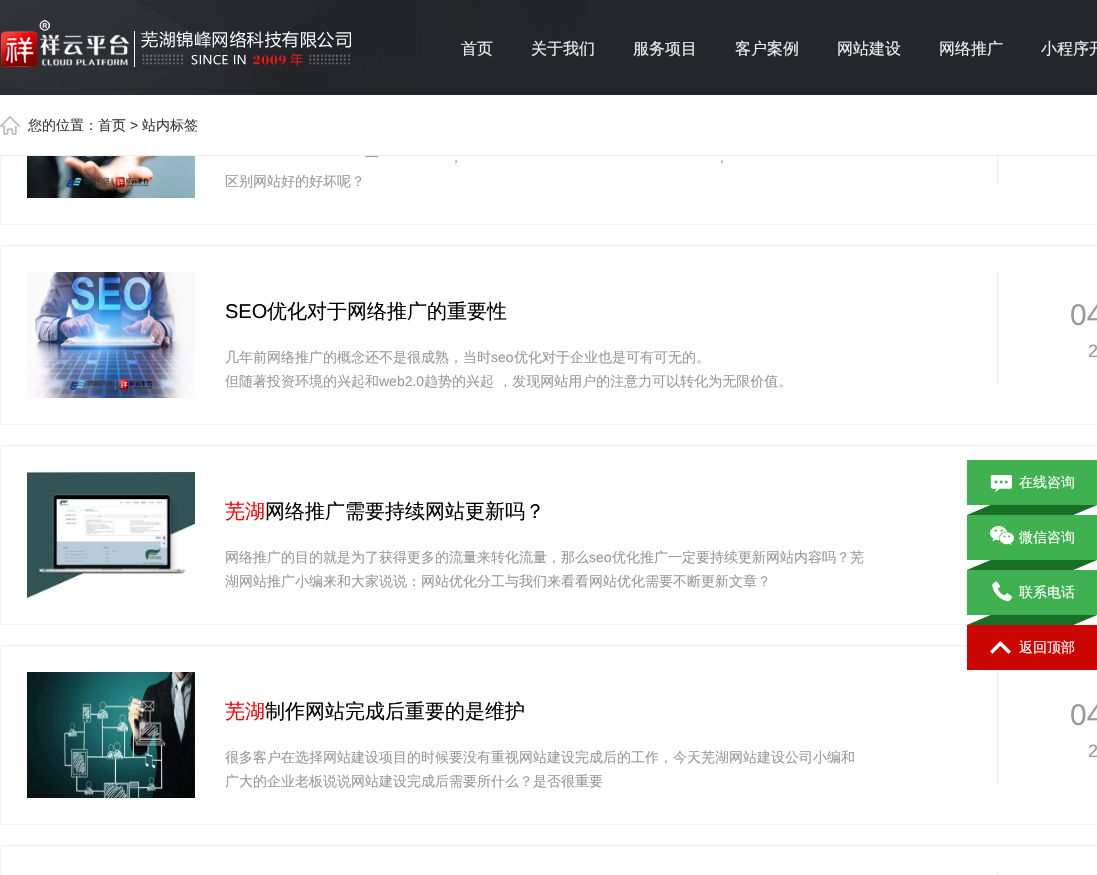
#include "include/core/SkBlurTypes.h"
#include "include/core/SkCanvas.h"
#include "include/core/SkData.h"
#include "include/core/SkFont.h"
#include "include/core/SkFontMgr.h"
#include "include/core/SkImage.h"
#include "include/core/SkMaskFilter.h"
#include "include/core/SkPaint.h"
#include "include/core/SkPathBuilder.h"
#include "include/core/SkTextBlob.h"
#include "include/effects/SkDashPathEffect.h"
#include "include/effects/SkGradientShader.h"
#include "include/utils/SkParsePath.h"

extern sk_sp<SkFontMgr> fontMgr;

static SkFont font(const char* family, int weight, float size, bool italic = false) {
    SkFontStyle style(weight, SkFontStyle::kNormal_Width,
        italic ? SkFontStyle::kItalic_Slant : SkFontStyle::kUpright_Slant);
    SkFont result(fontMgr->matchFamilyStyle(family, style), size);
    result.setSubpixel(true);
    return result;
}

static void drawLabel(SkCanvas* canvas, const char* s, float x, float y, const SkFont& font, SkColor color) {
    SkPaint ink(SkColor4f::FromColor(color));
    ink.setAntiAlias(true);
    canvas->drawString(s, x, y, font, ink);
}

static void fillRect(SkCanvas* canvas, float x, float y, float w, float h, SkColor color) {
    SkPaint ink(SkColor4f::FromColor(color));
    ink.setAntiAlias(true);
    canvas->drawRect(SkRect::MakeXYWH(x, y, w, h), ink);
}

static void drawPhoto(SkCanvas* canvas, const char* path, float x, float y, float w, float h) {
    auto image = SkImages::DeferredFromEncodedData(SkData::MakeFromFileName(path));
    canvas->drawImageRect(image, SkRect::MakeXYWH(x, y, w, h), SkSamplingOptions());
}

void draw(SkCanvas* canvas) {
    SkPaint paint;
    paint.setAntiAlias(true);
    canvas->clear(0xFFFFFFFF);
    paint.setStroke(true);
    paint.setStrokeWidth(1);
    paint.setColor(0xFFF3F3F3);
    canvas->drawRect(SkRect::MakeXYWH(0.5f, 45.5f, 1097, 179), paint);
    drawPhoto(canvas, "assets/img1.png", 0, 0, 1097, 95);
    drawPhoto(canvas, "assets/img2.png", 1, 20, 350, 47);
    SkFont font1 = font("WenQuanYi Zen Hei", 500, 16);
    drawLabel(canvas, "首页", 461, 54, font1, 0xFFEEEEEE);
    drawLabel(canvas, "关于我们", 531, 54, font1, 0xFFEEEEEE);
    drawLabel(canvas, "服务项目", 633, 54, font1, 0xFFEEEEEE);
    drawLabel(canvas, "客户案例", 735, 54, font1, 0xFFEEEEEE);
    drawLabel(canvas, "网站建设", 837, 54, font1, 0xFFEEEEEE);
    drawLabel(canvas, "网络推广", 939, 54, font1, 0xFFEEEEEE);
    drawLabel(canvas, "小程序开", 1041, 54, font1, 0xFFEEEEEE);
    fillRect(canvas, 0, 95, 1, 60, 0xFFFFFFFF);
    fillRect(canvas, 0, 155, 1097, 1, 0xFFEEEEEE);
    drawPhoto(canvas, "assets/img3.png", 0, 116, 20, 19);
    SkFont font2 = font("WenQuanYi Zen Hei", 500, 14);
    drawLabel(canvas, "您的位置：首页", 28, 130, font2, 0xFF363636);
    SkFont font3 = font("Liberation Sans", 400, 14);
    drawLabel(canvas, ">", 130, 130, font3, 0xFF363636);
    drawLabel(canvas, "站内标签", 142, 130, font2, 0xFF363636);
    drawPhoto(canvas, "assets/img4.png", 27, 156, 168, 42);
    drawLabel(canvas, "一", 365, 162, font2, 0xFF999999);
    drawLabel(canvas, "，", 449, 162, font2, 0xFF999999);
    drawLabel(canvas, "，", 715, 162, font2, 0xFF999999);
    drawLabel(canvas, "区别网站好的好坏呢？", 225, 186, font2, 0xFF999999);
    fillRect(canvas, 997, 156, 1, 29, 0xFFEEEEEE);
    canvas->drawRect(SkRect::MakeXYWH(0.5f, 245.5f, 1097, 179), paint);
    drawPhoto(canvas, "assets/img5.png", 27, 272, 168, 126);
    SkFont font4 = font("Liberation Sans", 400, 20);
    drawLabel(canvas, "SEO", 225, 318, font4, 0xFF000000);
    SkFont font5 = font("WenQuanYi Zen Hei", 500, 20);
    drawLabel(canvas, "优化对于网络推广的重要性", 267, 318, font5, 0xFF000000);
    fillRect(canvas, 997, 272, 1, 113, 0xFFEEEEEE);
    SkFont font6 = font("Liberation Sans", 400, 30);
    drawLabel(canvas, "04", 1070, 325, font6, 0xFF999999);
    SkFont font7 = font("Liberation Sans", 400, 18);
    drawLabel(canvas, "2", 1088, 357, font7, 0xFF999999);
    drawLabel(canvas, "几年前网络推广的概念还不是很成熟，当时", 225, 362, font2, 0xFF999999);
    drawLabel(canvas, "seo", 491, 362, font3, 0xFF999999);
    drawLabel(canvas, "优化对于企业也是可有可无的。", 514, 362, font2, 0xFF999999);
    drawLabel(canvas, "但随著投资环境的兴起和", 225, 386, font2, 0xFF999999);
    drawLabel(canvas, "web2.0", 379, 386, font3, 0xFF999999);
    drawLabel(canvas, "趋势的兴起 ，发现网站用户的注意力可以转化为无限价值。", 424, 386, font2, 0xFF999999);
    canvas->drawRect(SkRect::MakeXYWH(0.5f, 445.5f, 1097, 179), paint);
    drawPhoto(canvas, "assets/img6.png", 27, 472, 168, 126);
    drawLabel(canvas, "芜湖", 225, 518, font5, 0xFFFF0000);
    drawLabel(canvas, "网络推广需要持续网站更新吗？", 265, 518, font5, 0xFF000000);
    drawLabel(canvas, "网络推广的目的就是为了获得更多的流量来转化流量，那么", 225, 562, font2, 0xFF999999);
    drawLabel(canvas, "seo", 589, 562, font3, 0xFF999999);
    drawLabel(canvas, "优化推广一定要持续更新网站内容吗？芜", 612, 562, font2, 0xFF999999);
    drawLabel(canvas, "湖网站推广小编来和大家说说：网站优化分工与我们来看看网站优化需要不断更新文章？", 225, 586, font2, 0xFF999999);
    canvas->drawRect(SkRect::MakeXYWH(0.5f, 645.5f, 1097, 179), paint);
    drawPhoto(canvas, "assets/img7.png", 27, 672, 168, 126);
    drawLabel(canvas, "芜湖", 225, 718, font5, 0xFFFF0000);
    drawLabel(canvas, "制作网站完成后重要的是维护", 265, 718, font5, 0xFF000000);
    fillRect(canvas, 997, 672, 1, 113, 0xFFEEEEEE);
    drawLabel(canvas, "04", 1070, 725, font6, 0xFF999999);
    drawLabel(canvas, "2", 1088, 757, font7, 0xFF999999);
    drawLabel(canvas, "很多客户在选择网站建设项目的时候要没有重视网站建设完成后的工作，今天芜湖网站建设公司小编和", 225, 762, font2, 0xFF999999);
    drawLabel(canvas, "广大的企业老板说说网站建设完成后需要所什么？是否很重要", 225, 786, font2, 0xFF999999);
    canvas->drawRect(SkRect::MakeXYWH(0.5f, 845.5f, 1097, 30), paint);
    fillRect(canvas, 997, 872, 1, 3, 0xFFEEEEEE);
    drawPhoto(canvas, "assets/img8.png", 967, 460, 130, 55);
    drawPhoto(canvas, "assets/img9.png", 990, 475, 22, 17);
    drawLabel(canvas, "在线咨询", 1019, 487, font2, 0xFFFFFFFF);
    drawPhoto(canvas, "assets/img10.png", 967, 515, 130, 55);
    drawPhoto(canvas, "assets/img11.png", 990, 526, 24, 19);
    drawLabel(canvas, "微信咨询", 1019, 542, font2, 0xFFFFFFFF);
    drawPhoto(canvas, "assets/img12.png", 967, 570, 130, 55);
    drawPhoto(canvas, "assets/img13.png", 992, 581, 21, 21);
    drawLabel(canvas, "联系电话", 1019, 597, font2, 0xFFFFFFFF);
    fillRect(canvas, 967, 625, 130, 45, 0xFFCC0603);
    drawPhoto(canvas, "assets/img14.png", 990, 641, 21, 13);
    drawLabel(canvas, "返回顶部", 1019, 652, font2, 0xFFFFFFFF);
}
